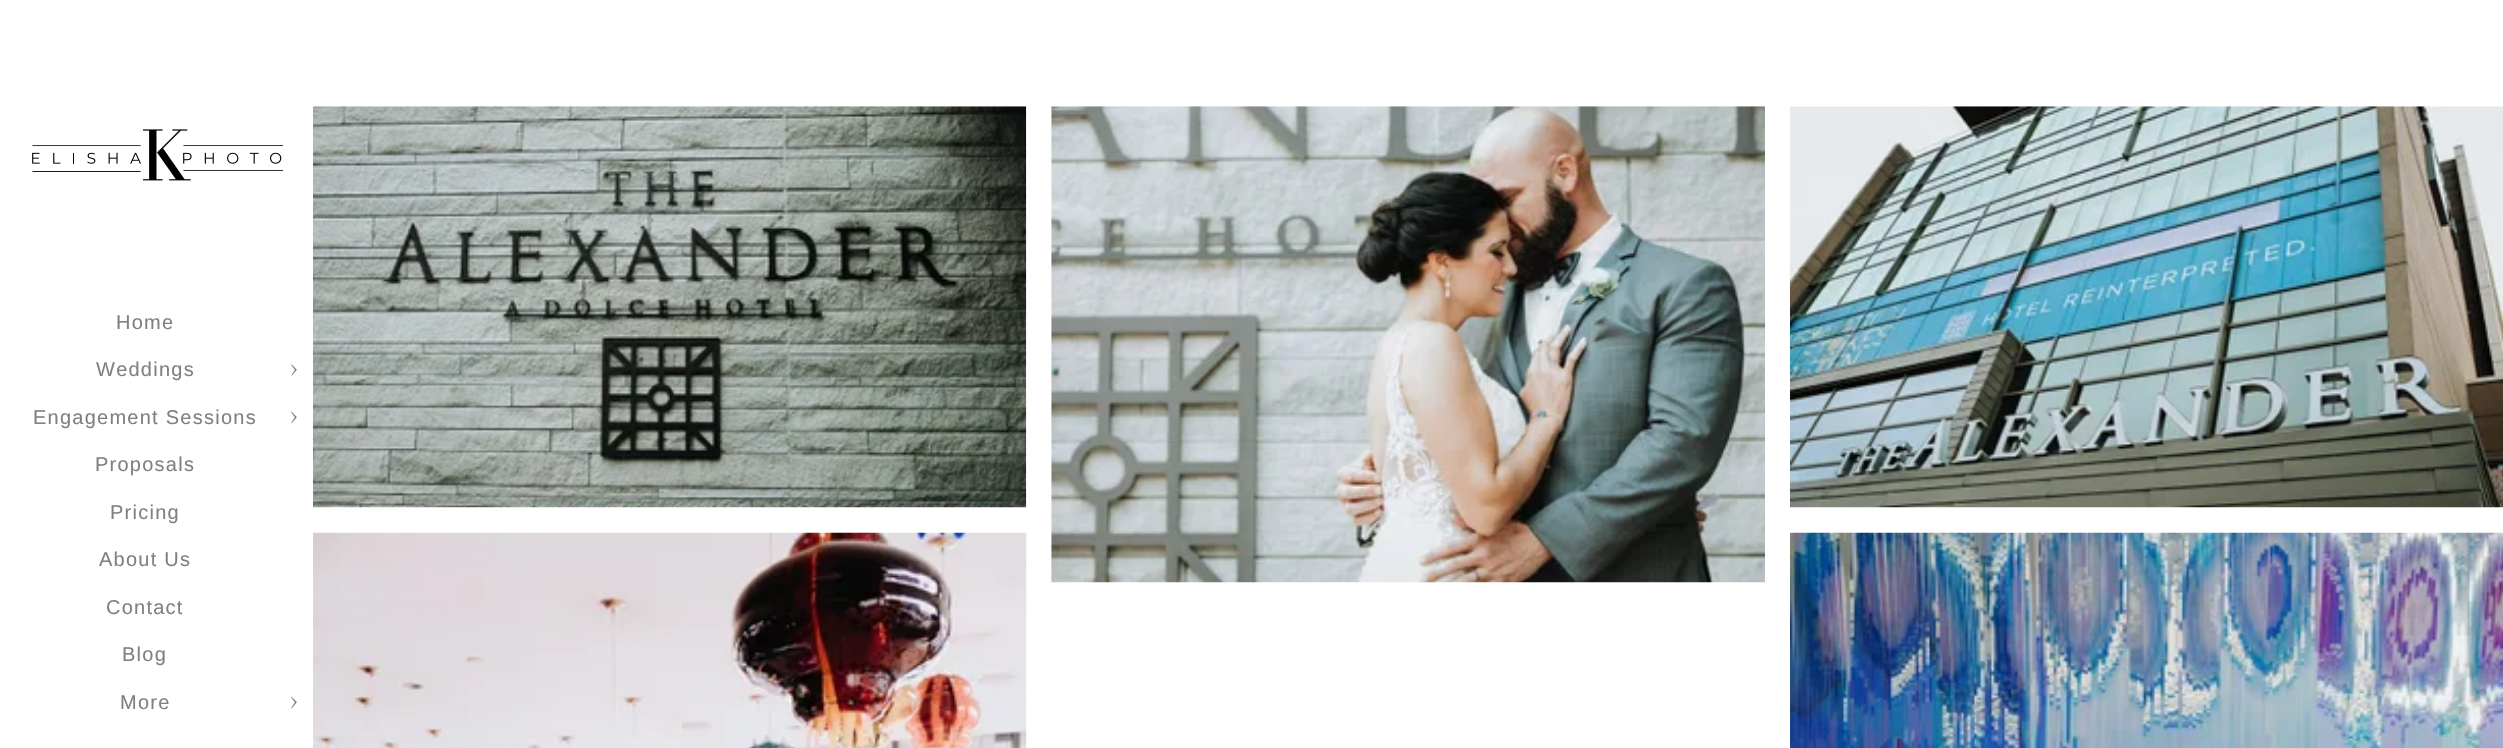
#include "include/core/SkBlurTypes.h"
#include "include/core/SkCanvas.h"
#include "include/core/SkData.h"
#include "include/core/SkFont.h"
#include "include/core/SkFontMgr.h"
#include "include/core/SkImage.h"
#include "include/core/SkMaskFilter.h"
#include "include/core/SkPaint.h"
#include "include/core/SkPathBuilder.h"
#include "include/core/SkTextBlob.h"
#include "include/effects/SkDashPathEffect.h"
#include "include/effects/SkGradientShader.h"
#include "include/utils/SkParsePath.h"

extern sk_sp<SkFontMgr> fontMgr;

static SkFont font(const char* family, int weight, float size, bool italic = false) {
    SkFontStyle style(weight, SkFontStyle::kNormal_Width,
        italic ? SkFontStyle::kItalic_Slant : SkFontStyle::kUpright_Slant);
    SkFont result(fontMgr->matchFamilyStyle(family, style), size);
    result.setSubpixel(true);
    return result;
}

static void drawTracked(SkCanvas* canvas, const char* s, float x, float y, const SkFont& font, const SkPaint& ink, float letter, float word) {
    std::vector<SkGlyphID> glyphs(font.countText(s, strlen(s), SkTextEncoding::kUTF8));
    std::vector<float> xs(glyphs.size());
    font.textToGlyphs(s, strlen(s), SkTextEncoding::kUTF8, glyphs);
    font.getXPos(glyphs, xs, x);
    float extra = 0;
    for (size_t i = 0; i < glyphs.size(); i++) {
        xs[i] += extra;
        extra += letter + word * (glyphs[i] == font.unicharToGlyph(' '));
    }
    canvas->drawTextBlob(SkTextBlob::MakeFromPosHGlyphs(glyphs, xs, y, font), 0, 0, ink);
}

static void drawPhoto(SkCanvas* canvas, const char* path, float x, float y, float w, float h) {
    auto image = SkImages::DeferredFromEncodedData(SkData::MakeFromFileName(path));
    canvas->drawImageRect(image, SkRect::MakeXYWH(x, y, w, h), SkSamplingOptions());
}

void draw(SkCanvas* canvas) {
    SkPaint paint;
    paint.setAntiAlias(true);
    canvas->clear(0xFFFFFFFF);
    drawPhoto(canvas, "assets/img1.png", 32, 129, 251, 52);
    SkFont font1 = font("Liberation Sans", 400, 20);
    paint.setColor(0xFF808080);
    drawTracked(canvas, "Home", 116, 329, font1, paint, 1.25f, 0);
    drawTracked(canvas, "Weddings", 96, 376, font1, paint, 1.25f, 0);
    drawPhoto(canvas, "assets/img2.png", 291, 364, 6, 12);
    drawTracked(canvas, "Engagement Sessions", 33, 424, font1, paint, 1.25f, 0);
    drawPhoto(canvas, "assets/img3.png", 291, 411, 6, 13);
    drawTracked(canvas, "Proposals", 95, 471, font1, paint, 1.25f, 0);
    drawTracked(canvas, "Pricing", 110, 519, font1, paint, 1.25f, 0);
    drawTracked(canvas, "About Us", 99, 566, font1, paint, 1.25f, 0);
    drawTracked(canvas, "Contact", 106, 614, font1, paint, 1.25f, 0);
    drawTracked(canvas, "Blog", 122, 661, font1, paint, 1.25f, 0);
    drawTracked(canvas, "More", 120, 709, font1, paint, 1.25f, 0);
    drawPhoto(canvas, "assets/img3.png", 291, 696, 6, 13);
    drawPhoto(canvas, "assets/img4.png", 313, 106, 714, 402);
    drawPhoto(canvas, "assets/img5.png", 313, 532, 714, 216);
    drawPhoto(canvas, "assets/img6.png", 1051, 106, 714, 477);
    drawPhoto(canvas, "assets/img7.png", 1790, 106, 713, 402);
    drawPhoto(canvas, "assets/img8.png", 1790, 532, 713, 216);
}
